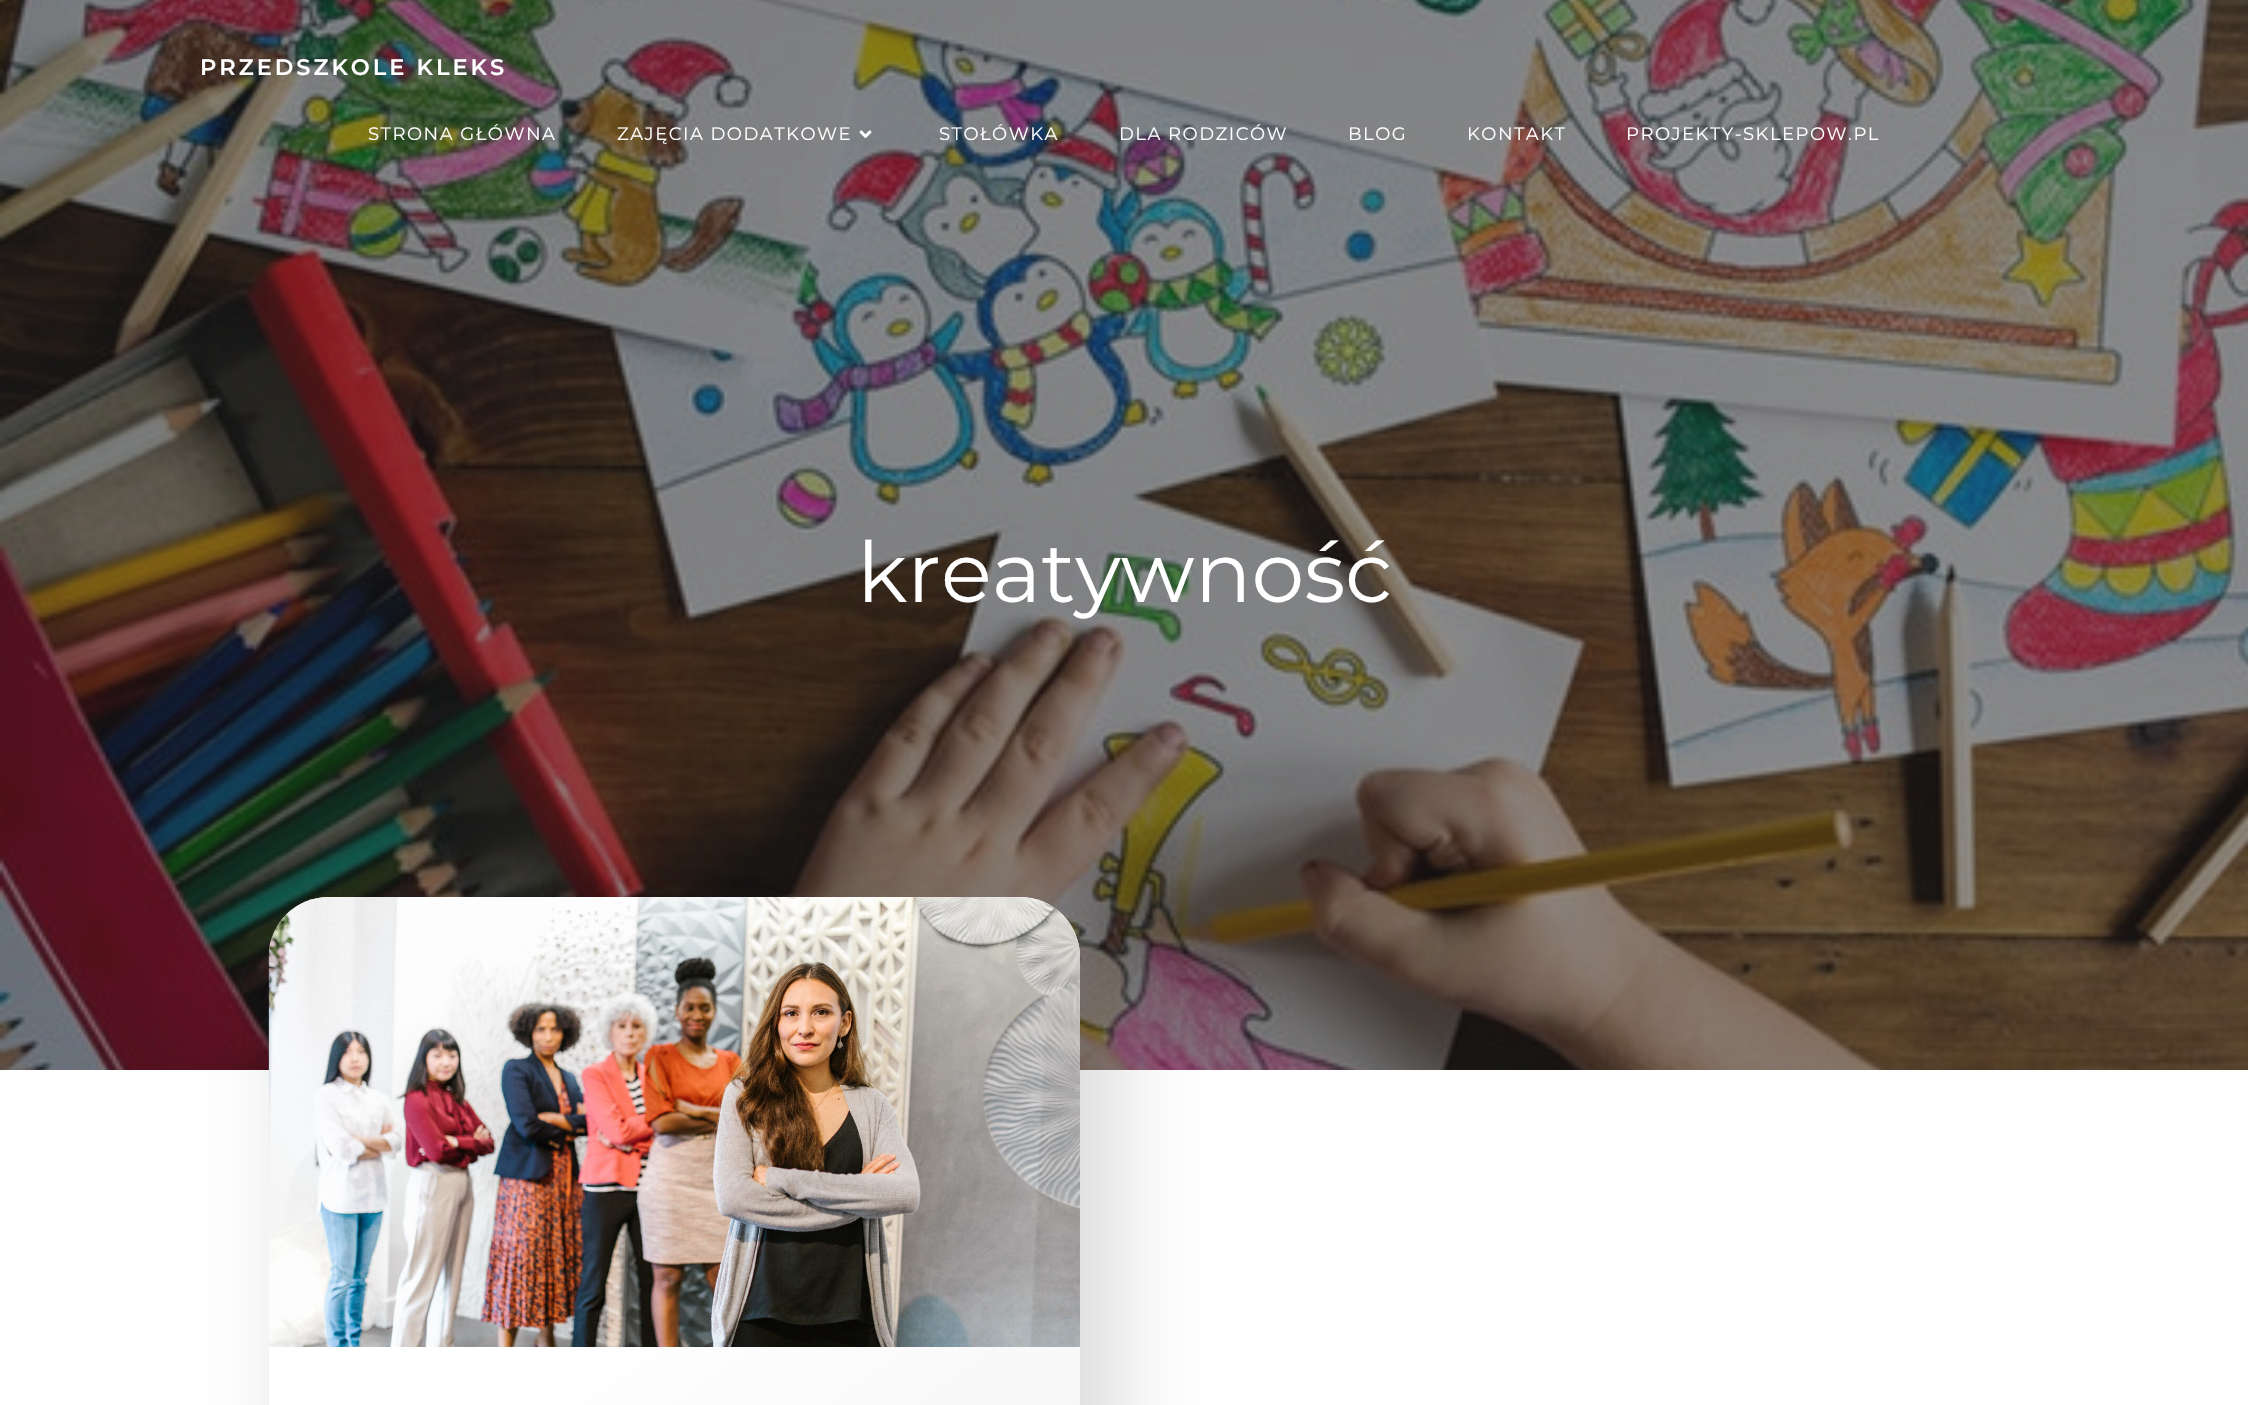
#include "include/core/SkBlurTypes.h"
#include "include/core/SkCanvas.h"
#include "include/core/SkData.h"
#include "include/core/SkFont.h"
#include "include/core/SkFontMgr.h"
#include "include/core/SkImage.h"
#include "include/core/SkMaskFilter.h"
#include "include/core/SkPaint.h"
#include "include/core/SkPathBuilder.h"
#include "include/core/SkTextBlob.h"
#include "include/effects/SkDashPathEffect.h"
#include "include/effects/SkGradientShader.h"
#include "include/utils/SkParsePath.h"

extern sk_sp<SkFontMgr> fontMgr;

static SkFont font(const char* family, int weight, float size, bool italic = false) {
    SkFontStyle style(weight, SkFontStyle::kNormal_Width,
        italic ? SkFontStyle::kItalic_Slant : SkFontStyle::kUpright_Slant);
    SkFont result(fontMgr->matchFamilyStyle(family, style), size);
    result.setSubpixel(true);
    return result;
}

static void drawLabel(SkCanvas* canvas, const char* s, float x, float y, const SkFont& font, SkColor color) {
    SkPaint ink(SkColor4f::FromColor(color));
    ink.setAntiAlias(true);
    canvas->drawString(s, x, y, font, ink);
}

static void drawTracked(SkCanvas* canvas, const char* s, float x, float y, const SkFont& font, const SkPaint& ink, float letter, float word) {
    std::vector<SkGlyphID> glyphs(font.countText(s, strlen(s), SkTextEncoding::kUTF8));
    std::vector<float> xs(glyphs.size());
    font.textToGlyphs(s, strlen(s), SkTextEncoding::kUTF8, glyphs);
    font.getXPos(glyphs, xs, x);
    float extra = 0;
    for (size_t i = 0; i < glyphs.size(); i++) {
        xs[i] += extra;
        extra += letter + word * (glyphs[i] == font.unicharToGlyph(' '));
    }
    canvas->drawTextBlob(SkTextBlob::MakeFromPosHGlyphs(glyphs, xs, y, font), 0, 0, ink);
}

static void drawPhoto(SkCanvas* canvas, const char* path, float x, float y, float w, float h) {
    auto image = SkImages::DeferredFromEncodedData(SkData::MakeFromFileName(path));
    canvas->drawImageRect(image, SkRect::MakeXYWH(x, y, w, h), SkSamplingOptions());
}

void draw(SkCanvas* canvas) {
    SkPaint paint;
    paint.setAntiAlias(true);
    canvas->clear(0xFFFFFFFF);
    drawPhoto(canvas, "assets/img2.png", 0, 0, 2248, 1070);
    SkFont font1 = font("Montserrat", 600, 22.5f);
    paint.setColor(0xFFFFFFFF);
    drawTracked(canvas, "PRZEDSZKOLE KLEKS", 200, 75, font1, paint, 3, 0);
    SkFont font2 = font("Montserrat", 400, 18);
    drawTracked(canvas, "STRONA GŁÓWNA", 368, 140, font2, paint, 1.5f, 0);
    drawTracked(canvas, "ZAJĘCIA DODATKOWE", 617, 140, font2, paint, 1.5f, 0);
    drawPhoto(canvas, "assets/img1.png", 859, 130, 13, 9);
    drawTracked(canvas, "STOŁÓWKA", 939, 140, font2, paint, 1.5f, 0);
    drawTracked(canvas, "DLA RODZICÓW", 1119, 140, font2, paint, 1.5f, 0);
    drawTracked(canvas, "BLOG", 1348, 140, font2, paint, 1.5f, 0);
    drawTracked(canvas, "KONTAKT", 1467, 140, font2, paint, 1.5f, 0);
    drawTracked(canvas, "PROJEKTY-SKLEPOW.PL", 1626, 140, font2, paint, 1.5f, 0);
    SkFont font3 = font("Montserrat", 400, 84);
    drawLabel(canvas, "kreatywność", 857, 602, font3, 0xFFFFFFFF);
    paint.setColor(0x26000000);
    paint.setMaskFilter(SkMaskFilter::MakeBlur(kNormal_SkBlurStyle, 45));
    canvas->drawRoundRect(SkRect::MakeXYWH(296, 924, 817, 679), 63, 63, paint);
    paint.setMaskFilter(nullptr);
    {
        const SkColor colors[] = {0xFFFFFFFF, 0xFFEFEFEF};
        const float stops[] = {0.42f, 1};
        const SkPoint ends[] = {{311, 867}, {1037, 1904}};
        paint.setShader(SkGradientShader::MakeLinear(ends, colors, stops, 2, SkTileMode::kClamp));
        paint.setAlpha(255);
    }
    canvas->drawRoundRect(SkRect::MakeXYWH(269, 897, 811, 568), 60, 60, paint);
    drawPhoto(canvas, "assets/img3.png", 268, 897, 812, 450);
}
